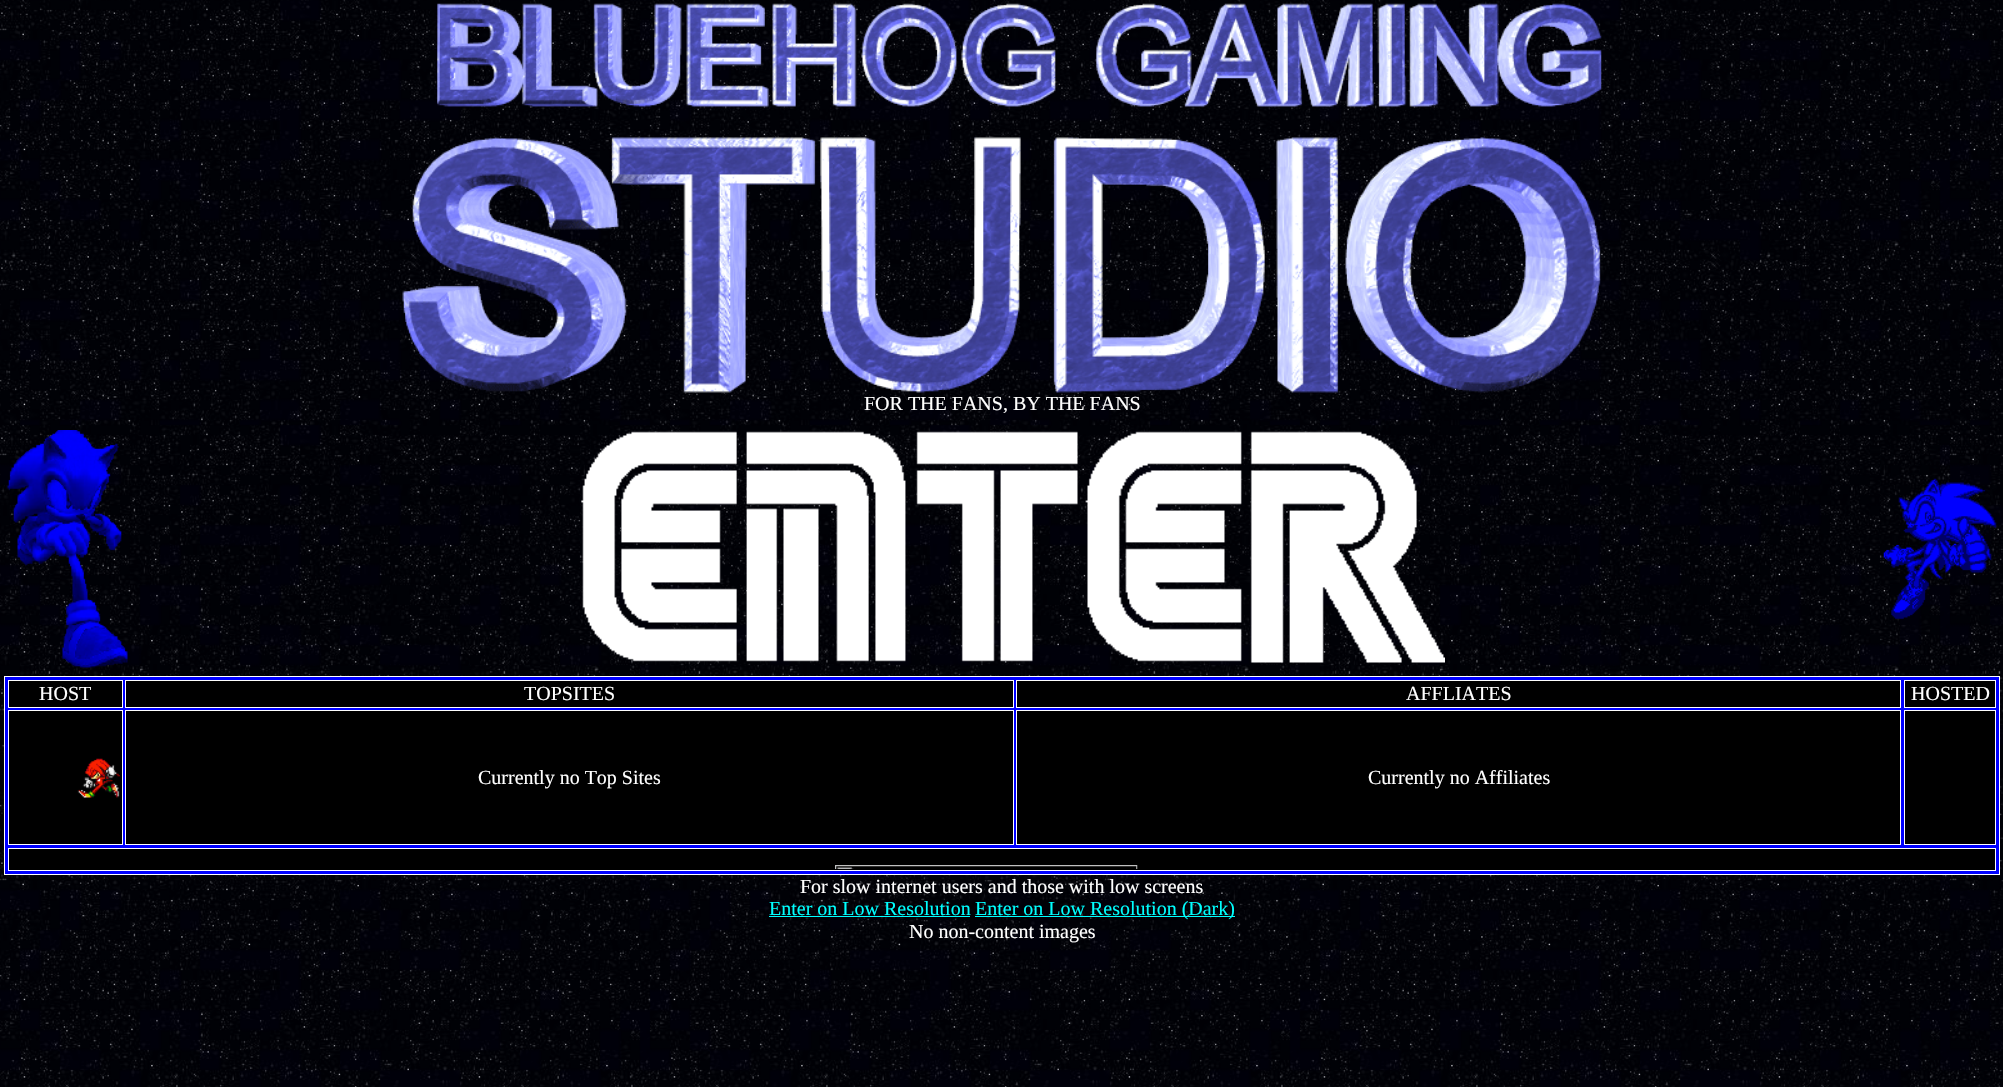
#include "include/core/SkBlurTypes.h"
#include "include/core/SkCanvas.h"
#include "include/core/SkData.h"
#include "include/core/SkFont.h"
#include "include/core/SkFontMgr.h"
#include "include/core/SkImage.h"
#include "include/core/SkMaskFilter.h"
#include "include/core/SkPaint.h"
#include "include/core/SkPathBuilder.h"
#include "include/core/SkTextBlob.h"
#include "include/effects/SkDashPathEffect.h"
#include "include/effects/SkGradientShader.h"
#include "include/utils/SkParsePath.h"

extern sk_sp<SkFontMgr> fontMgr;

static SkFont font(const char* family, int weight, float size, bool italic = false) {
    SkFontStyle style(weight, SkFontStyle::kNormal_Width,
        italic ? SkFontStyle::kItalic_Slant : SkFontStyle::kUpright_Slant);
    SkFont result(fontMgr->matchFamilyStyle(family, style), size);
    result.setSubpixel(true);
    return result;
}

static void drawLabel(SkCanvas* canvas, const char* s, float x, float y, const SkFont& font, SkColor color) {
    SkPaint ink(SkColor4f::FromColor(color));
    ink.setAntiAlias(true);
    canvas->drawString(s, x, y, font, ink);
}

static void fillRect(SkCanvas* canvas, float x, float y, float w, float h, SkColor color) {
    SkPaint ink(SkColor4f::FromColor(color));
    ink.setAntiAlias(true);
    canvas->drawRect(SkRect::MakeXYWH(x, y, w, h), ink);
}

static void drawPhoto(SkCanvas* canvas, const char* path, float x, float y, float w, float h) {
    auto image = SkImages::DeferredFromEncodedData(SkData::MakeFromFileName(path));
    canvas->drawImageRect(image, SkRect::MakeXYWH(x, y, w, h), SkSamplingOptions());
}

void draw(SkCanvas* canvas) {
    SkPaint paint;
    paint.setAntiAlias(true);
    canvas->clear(0xFFFFFFFF);
    drawPhoto(canvas, "assets/img1.png", 0, 0, 2003, 1087);
    drawPhoto(canvas, "assets/img2.png", 402, 3, 1200, 390);
    SkFont font1 = font("Liberation Serif", 400, 20);
    drawLabel(canvas, "FOR THE FANS, BY THE FANS", 864, 410, font1, 0xFFFFFFFF);
    drawPhoto(canvas, "assets/img3.png", 7, 430, 121, 238);
    drawPhoto(canvas, "assets/img4.png", 581, 431, 864, 232);
    drawPhoto(canvas, "assets/img5.png", 1883, 478, 114, 141);
    paint.setColor(0xFF0000FF);
    canvas->drawRect(SkRect::MakeXYWH(4.5f, 676.5f, 1995, 198), paint);
    paint.setStroke(true);
    paint.setStrokeWidth(1);
    paint.setColor(0xFFFFFFFF);
    canvas->drawRect(SkRect::MakeXYWH(4.5f, 676.5f, 1995, 198), paint);
    paint.setStroke(false);
    paint.setColor(0xFF000000);
    canvas->drawRect(SkRect::MakeXYWH(8.5f, 680.5f, 114, 27), paint);
    paint.setStroke(true);
    paint.setColor(0xFFFFFFFF);
    canvas->drawRect(SkRect::MakeXYWH(8.5f, 680.5f, 114, 27), paint);
    drawLabel(canvas, "HOST", 39, 700, font1, 0xFFFFFFFF);
    paint.setStroke(false);
    paint.setColor(0xFF000000);
    canvas->drawRect(SkRect::MakeXYWH(125.5f, 680.5f, 888, 27), paint);
    paint.setStroke(true);
    paint.setColor(0xFFFFFFFF);
    canvas->drawRect(SkRect::MakeXYWH(125.5f, 680.5f, 888, 27), paint);
    drawLabel(canvas, "TOPSITES", 524, 700, font1, 0xFFFFFFFF);
    paint.setStroke(false);
    paint.setColor(0xFF000000);
    canvas->drawRect(SkRect::MakeXYWH(1016.5f, 680.5f, 884, 27), paint);
    paint.setStroke(true);
    paint.setColor(0xFFFFFFFF);
    canvas->drawRect(SkRect::MakeXYWH(1016.5f, 680.5f, 884, 27), paint);
    drawLabel(canvas, "AFFLIATES", 1406, 700, font1, 0xFFFFFFFF);
    paint.setStroke(false);
    paint.setColor(0xFF000000);
    canvas->drawRect(SkRect::MakeXYWH(1904.5f, 680.5f, 91, 27), paint);
    paint.setStroke(true);
    paint.setColor(0xFFFFFFFF);
    canvas->drawRect(SkRect::MakeXYWH(1904.5f, 680.5f, 91, 27), paint);
    drawLabel(canvas, "HOSTED", 1911, 700, font1, 0xFFFFFFFF);
    paint.setStroke(false);
    paint.setColor(0xFF000000);
    canvas->drawRect(SkRect::MakeXYWH(8.5f, 710.5f, 114, 134), paint);
    paint.setStroke(true);
    paint.setColor(0xFFFFFFFF);
    canvas->drawRect(SkRect::MakeXYWH(8.5f, 710.5f, 114, 134), paint);
    drawPhoto(canvas, "assets/img6.png", 77, 758, 43, 40);
    paint.setStroke(false);
    paint.setColor(0xFF000000);
    canvas->drawRect(SkRect::MakeXYWH(125.5f, 710.5f, 888, 134), paint);
    paint.setStroke(true);
    paint.setColor(0xFFFFFFFF);
    canvas->drawRect(SkRect::MakeXYWH(125.5f, 710.5f, 888, 134), paint);
    drawLabel(canvas, "Currently no Top Sites", 478, 784, font1, 0xFFFFFFFF);
    paint.setStroke(false);
    paint.setColor(0xFF000000);
    canvas->drawRect(SkRect::MakeXYWH(1016.5f, 710.5f, 884, 134), paint);
    paint.setStroke(true);
    paint.setColor(0xFFFFFFFF);
    canvas->drawRect(SkRect::MakeXYWH(1016.5f, 710.5f, 884, 134), paint);
    drawLabel(canvas, "Currently no Affiliates", 1368, 784, font1, 0xFFFFFFFF);
    paint.setStroke(false);
    paint.setColor(0xFF000000);
    canvas->drawRect(SkRect::MakeXYWH(1904.5f, 710.5f, 91, 134), paint);
    paint.setStroke(true);
    paint.setColor(0xFFFFFFFF);
    canvas->drawRect(SkRect::MakeXYWH(1904.5f, 710.5f, 91, 134), paint);
    paint.setStroke(false);
    paint.setColor(0xFF000000);
    canvas->drawRect(SkRect::MakeXYWH(8.5f, 848.5f, 1987, 22), paint);
    paint.setStroke(true);
    paint.setColor(0xFFFFFFFF);
    canvas->drawRect(SkRect::MakeXYWH(8.5f, 848.5f, 1987, 22), paint);
    drawPhoto(canvas, "assets/img7.png", 835, 865, 303, 4);
    drawLabel(canvas, "For slow internet users and those with low screens", 800, 893, font1, 0xFFFFFFFF);
    drawLabel(canvas, "Enter on Low Resolution", 769, 915, font1, 0xFF00FFFF);
    fillRect(canvas, 769, 916, 201, 1, 0xFF00FFFF);
    fillRect(canvas, 975, 916, 260, 1, 0xFF00FFFF);
    drawLabel(canvas, "Enter on Low Resolution (Dark)", 975, 915, font1, 0xFF00FFFF);
    drawLabel(canvas, "No non-content images", 909, 938, font1, 0xFFFFFFFF);
}
